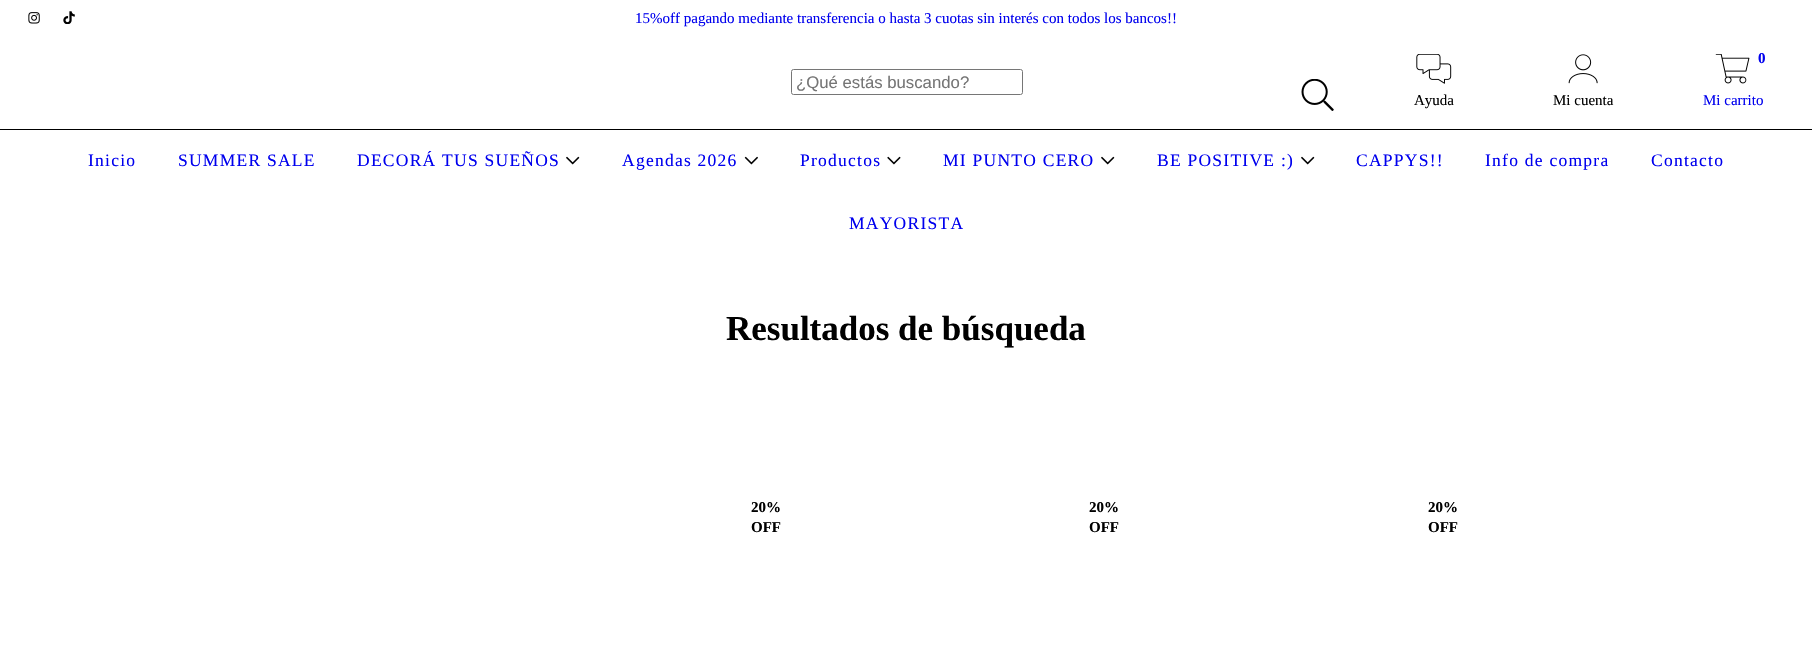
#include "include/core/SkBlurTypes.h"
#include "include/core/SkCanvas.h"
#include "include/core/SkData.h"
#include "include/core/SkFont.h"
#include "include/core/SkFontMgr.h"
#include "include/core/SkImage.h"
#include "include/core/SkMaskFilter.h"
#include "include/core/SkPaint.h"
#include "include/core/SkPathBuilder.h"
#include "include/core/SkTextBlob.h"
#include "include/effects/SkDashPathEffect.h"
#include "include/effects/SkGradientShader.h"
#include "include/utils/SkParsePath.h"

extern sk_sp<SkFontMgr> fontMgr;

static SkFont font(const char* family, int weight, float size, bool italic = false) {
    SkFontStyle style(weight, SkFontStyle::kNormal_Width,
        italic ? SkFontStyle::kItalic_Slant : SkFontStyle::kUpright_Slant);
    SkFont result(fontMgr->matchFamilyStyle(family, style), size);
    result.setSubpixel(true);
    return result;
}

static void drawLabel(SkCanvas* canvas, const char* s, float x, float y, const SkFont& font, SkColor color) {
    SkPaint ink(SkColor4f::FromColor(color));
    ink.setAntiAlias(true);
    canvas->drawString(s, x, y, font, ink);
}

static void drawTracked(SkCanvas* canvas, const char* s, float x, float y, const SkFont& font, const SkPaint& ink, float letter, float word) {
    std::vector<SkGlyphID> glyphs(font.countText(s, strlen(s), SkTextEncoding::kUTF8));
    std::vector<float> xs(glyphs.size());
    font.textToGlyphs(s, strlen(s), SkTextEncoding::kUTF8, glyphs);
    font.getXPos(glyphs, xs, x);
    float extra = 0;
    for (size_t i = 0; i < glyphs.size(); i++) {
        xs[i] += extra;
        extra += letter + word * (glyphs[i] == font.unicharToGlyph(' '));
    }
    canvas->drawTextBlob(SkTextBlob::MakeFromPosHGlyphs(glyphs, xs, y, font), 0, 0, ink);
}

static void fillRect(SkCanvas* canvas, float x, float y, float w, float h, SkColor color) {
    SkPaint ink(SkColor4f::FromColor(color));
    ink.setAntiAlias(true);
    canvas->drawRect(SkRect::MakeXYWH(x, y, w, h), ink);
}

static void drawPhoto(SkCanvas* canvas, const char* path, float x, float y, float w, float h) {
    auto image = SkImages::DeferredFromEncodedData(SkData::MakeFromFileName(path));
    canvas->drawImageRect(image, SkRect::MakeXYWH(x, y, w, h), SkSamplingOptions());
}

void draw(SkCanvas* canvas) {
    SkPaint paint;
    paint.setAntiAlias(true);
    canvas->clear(0xFFFFFFFF);
    drawPhoto(canvas, "assets/img1.png", 28, 12, 12, 12);
    drawPhoto(canvas, "assets/img2.png", 63, 11, 12, 13);
    SkFont font1 = font("Liberation Serif", 400, 15);
    drawLabel(canvas, "15%off pagando mediante transferencia o hasta 3 cuotas sin interés con todos los bancos!!", 635, 23, font1, 0xFF0000EE);
    paint.setStroke(true);
    paint.setStrokeWidth(1);
    paint.setColor(0xFF767676);
    canvas->drawRoundRect(SkRect::MakeXYWH(791.5f, 69.5f, 231, 25), 2, 2, paint);
    SkFont font2 = font("Liberation Sans", 400, 16.75f);
    drawLabel(canvas, "¿Qué estás buscando?", 796, 88, font2, 0xFF757575);
    drawPhoto(canvas, "assets/img3.png", 1301, 79, 33, 32);
    drawPhoto(canvas, "assets/img4.png", 1416, 54, 36, 30);
    drawLabel(canvas, "Ayuda", 1414, 105, font1, 0xFF000000);
    drawPhoto(canvas, "assets/img5.png", 1568, 54, 30, 30);
    drawLabel(canvas, "Mi cuenta", 1553, 105, font1, 0xFF000000);
    drawPhoto(canvas, "assets/img6.png", 1715, 54, 35, 30);
    SkFont font3 = font("Liberation Serif", 700, 15);
    drawLabel(canvas, "0", 1758, 63, font3, 0xFF0000EE);
    drawLabel(canvas, "Mi carrito", 1703, 105, font1, 0xFF0000EE);
    fillRect(canvas, 0, 129, 1812, 1, 0xFF000000);
    SkFont font4 = font("Liberation Serif", 400, 17.5f);
    paint.setStroke(false);
    paint.setColor(0xFF0000EE);
    drawTracked(canvas, "Inicio", 88, 166, font4, paint, 1.25f, 0);
    drawTracked(canvas, "SUMMER SALE", 178, 166, font4, paint, 1.25f, 0);
    drawTracked(canvas, "DECORÁ TUS SUEÑOS", 357, 166, font4, paint, 1.25f, 0);
    drawPhoto(canvas, "assets/img7.png", 566, 156, 14, 9);
    drawTracked(canvas, "Agendas 2026", 622, 166, font4, paint, 1.25f, 0);
    drawPhoto(canvas, "assets/img8.png", 744, 156, 14, 9);
    drawTracked(canvas, "Productos", 800, 166, font4, paint, 1.25f, 0);
    drawPhoto(canvas, "assets/img9.png", 887, 156, 14, 9);
    drawTracked(canvas, "MI PUNTO CERO", 943, 166, font4, paint, 1.25f, 0);
    drawPhoto(canvas, "assets/img7.png", 1101, 156, 14, 9);
    drawTracked(canvas, "BE POSITIVE :)", 1157, 166, font4, paint, 1.25f, 0);
    drawPhoto(canvas, "assets/img7.png", 1301, 156, 14, 9);
    drawTracked(canvas, "CAPPYS!!", 1356, 166, font4, paint, 1.25f, 0);
    drawTracked(canvas, "Info de compra", 1485, 166, font4, paint, 1.25f, 0);
    drawTracked(canvas, "Contacto", 1651, 166, font4, paint, 1.25f, 0);
    drawTracked(canvas, "MAYORISTA", 849, 229, font4, paint, 1.25f, 0);
    SkFont font5 = font("Liberation Serif", 700, 35);
    drawLabel(canvas, "Resultados de búsqueda", 726, 340, font5, 0xFF000000);
    drawLabel(canvas, "20%", 751, 512, font3, 0xFF000000);
    drawLabel(canvas, "OFF", 751, 532, font3, 0xFF000000);
    drawLabel(canvas, "20%", 1089, 512, font3, 0xFF000000);
    drawLabel(canvas, "OFF", 1089, 532, font3, 0xFF000000);
    drawLabel(canvas, "20%", 1428, 512, font3, 0xFF000000);
    drawLabel(canvas, "OFF", 1428, 532, font3, 0xFF000000);
}
